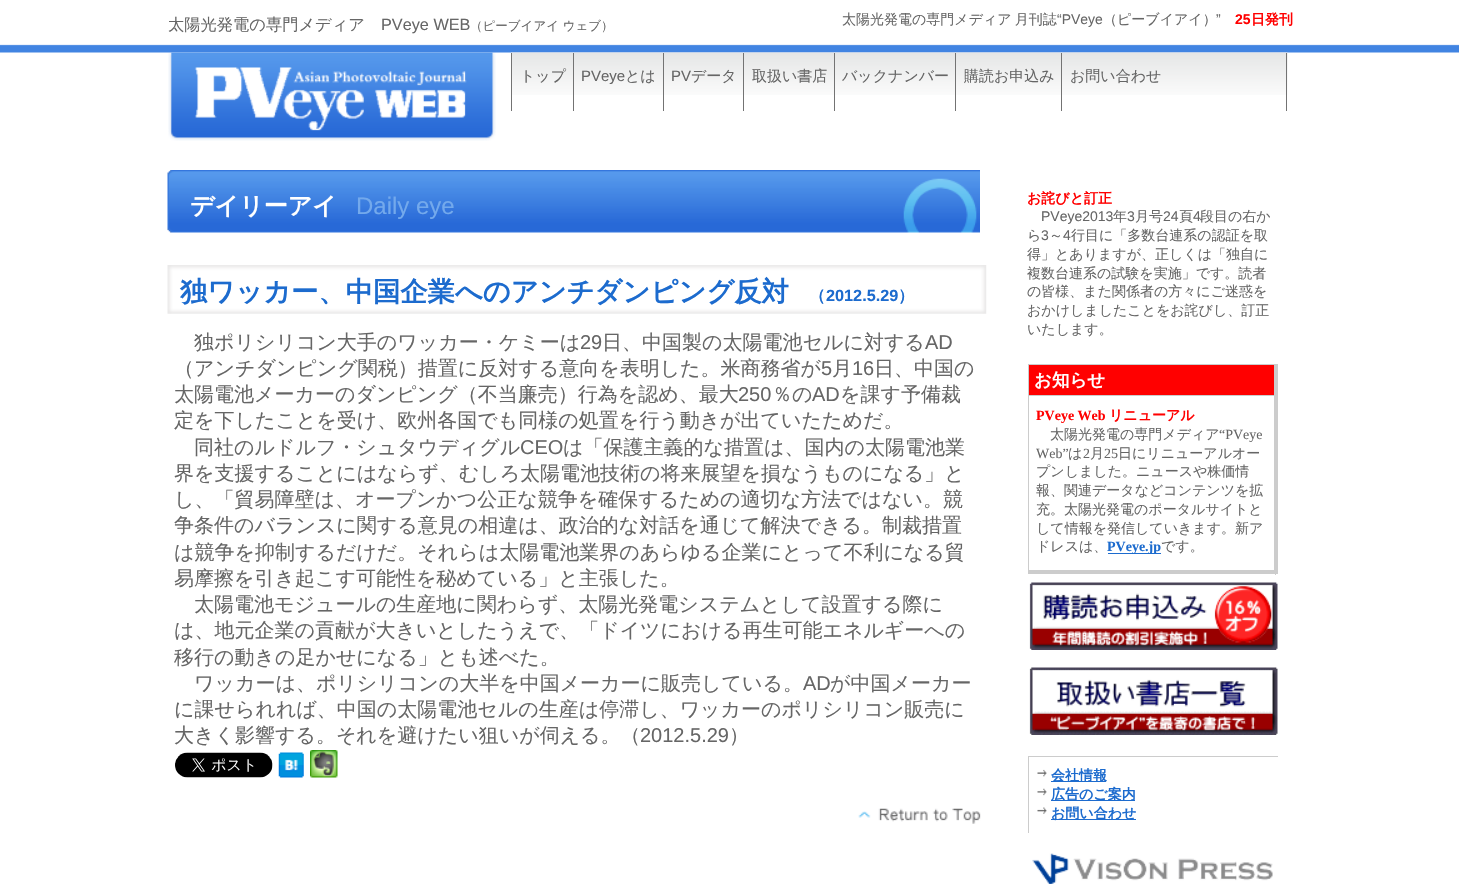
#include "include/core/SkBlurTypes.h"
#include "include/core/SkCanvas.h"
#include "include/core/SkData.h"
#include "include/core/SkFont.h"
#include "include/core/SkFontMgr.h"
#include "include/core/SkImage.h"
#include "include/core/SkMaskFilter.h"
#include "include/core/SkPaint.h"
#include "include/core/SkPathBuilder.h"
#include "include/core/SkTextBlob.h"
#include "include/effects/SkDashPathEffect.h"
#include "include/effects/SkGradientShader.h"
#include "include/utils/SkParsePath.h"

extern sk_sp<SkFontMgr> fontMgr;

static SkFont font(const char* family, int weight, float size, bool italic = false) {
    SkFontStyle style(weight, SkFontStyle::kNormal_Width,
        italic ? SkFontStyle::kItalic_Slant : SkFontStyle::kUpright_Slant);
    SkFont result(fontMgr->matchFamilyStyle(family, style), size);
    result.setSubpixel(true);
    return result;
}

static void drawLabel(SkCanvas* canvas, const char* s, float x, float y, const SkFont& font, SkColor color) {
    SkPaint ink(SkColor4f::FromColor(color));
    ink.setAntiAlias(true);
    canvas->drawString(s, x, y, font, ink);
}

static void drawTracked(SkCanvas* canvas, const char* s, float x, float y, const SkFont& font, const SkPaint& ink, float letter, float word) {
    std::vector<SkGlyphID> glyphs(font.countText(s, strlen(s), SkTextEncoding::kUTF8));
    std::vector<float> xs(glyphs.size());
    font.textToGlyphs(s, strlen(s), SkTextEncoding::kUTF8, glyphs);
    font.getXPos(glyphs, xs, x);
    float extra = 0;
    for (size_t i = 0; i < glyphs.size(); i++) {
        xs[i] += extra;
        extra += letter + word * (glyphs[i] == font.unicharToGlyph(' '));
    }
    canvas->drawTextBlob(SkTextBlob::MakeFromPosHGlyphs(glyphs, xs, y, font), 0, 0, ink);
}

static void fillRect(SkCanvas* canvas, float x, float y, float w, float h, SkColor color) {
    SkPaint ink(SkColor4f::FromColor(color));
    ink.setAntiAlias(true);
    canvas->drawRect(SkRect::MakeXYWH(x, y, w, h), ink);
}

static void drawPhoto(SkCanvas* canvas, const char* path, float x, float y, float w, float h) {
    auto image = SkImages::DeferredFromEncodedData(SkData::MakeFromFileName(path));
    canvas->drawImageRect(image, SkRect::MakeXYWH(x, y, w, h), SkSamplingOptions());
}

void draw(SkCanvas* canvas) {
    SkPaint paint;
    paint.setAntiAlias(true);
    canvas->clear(0xFFFFFFFF);
    drawPhoto(canvas, "assets/img1.png", 0, 44, 1459, 9);
    SkFont font1 = font("WenQuanYi Zen Hei", 500, 16.25f);
    drawLabel(canvas, "太陽光発電の専門メディア", 168, 30, font1, 0xFF666666);
    SkFont font2 = font("Liberation Sans", 400, 16.25f);
    drawLabel(canvas, "PVeye WEB", 381, 30, font2, 0xFF666666);
    SkFont font3 = font("WenQuanYi Zen Hei", 500, 12.5f);
    drawLabel(canvas, "（ピーブイアイ ウェブ）", 470, 30, font3, 0xFF666666);
    SkFont font4 = font("WenQuanYi Zen Hei", 500, 14);
    paint.setColor(0xFF666666);
    drawTracked(canvas, "太陽光発電の専門メディア 月刊誌", 842, 24, font4, paint, 0, -1);
    SkFont font5 = font("Liberation Sans", 400, 14);
    drawLabel(canvas, "“PVeye", 1057, 24, font5, 0xFF666666);
    drawLabel(canvas, "（ピーブイアイ）", 1103, 24, font4, 0xFF666666);
    drawLabel(canvas, "”", 1216, 24, font5, 0xFF666666);
    SkFont font6 = font("Liberation Sans", 700, 14);
    drawLabel(canvas, "25", 1235, 24, font6, 0xFFFF0000);
    SkFont font7 = font("WenQuanYi Zen Hei", 700, 14);
    drawLabel(canvas, "日発刊", 1251, 24, font7, 0xFFFF0000);
    drawPhoto(canvas, "assets/img2.png", 168, 52, 328, 89);
    drawPhoto(canvas, "assets/img3.png", 511, 52, 777, 43);
    fillRect(canvas, 1286, 53, 1, 58, 0xFF737373);
    fillRect(canvas, 511, 53, 1, 58, 0xFF737373);
    SkFont font8 = font("WenQuanYi Zen Hei", 500, 15);
    drawLabel(canvas, "トップ", 520, 81, font8, 0xFF666666);
    fillRect(canvas, 573, 53, 1, 58, 0xFF737373);
    SkFont font9 = font("Liberation Sans", 400, 15);
    drawLabel(canvas, "PVeye", 581, 81, font9, 0xFF666666);
    drawLabel(canvas, "とは", 625, 81, font8, 0xFF666666);
    fillRect(canvas, 663, 53, 1, 58, 0xFF737373);
    drawLabel(canvas, "PV", 671, 81, font9, 0xFF666666);
    drawLabel(canvas, "データ", 691, 81, font8, 0xFF666666);
    fillRect(canvas, 743, 53, 1, 58, 0xFF737373);
    drawLabel(canvas, "取扱い書店", 752, 81, font8, 0xFF666666);
    fillRect(canvas, 834, 53, 1, 58, 0xFF737373);
    drawLabel(canvas, "バックナンバー", 842, 81, font8, 0xFF666666);
    fillRect(canvas, 955, 53, 1, 58, 0xFF737373);
    drawLabel(canvas, "購読お申込み", 964, 81, font8, 0xFF666666);
    fillRect(canvas, 1061, 53, 1, 58, 0xFF737373);
    drawLabel(canvas, "お問い合わせ", 1070, 81, font8, 0xFF666666);
    drawPhoto(canvas, "assets/img4.png", 167, 170, 813, 63);
    SkFont font10 = font("WenQuanYi Zen Hei", 700, 24);
    drawLabel(canvas, "デイリーアイ", 190, 214, font10, 0xFFFFFFFF);
    SkFont font11 = font("Liberation Sans", 400, 24);
    drawLabel(canvas, "Daily eye", 356, 214, font11, 0xFF73A9EC);
    drawPhoto(canvas, "assets/img5.png", 167, 265, 820, 49);
    SkFont font12 = font("WenQuanYi Zen Hei", 700, 27.3f);
    drawLabel(canvas, "独ワッカー、中国企業へのアンチダンピング反対", 180, 301, font12, 0xFF1C6BCE);
    SkFont font13 = font("WenQuanYi Zen Hei", 700, 16.25f);
    drawLabel(canvas, "（", 809, 301, font13, 0xFF1C6BCE);
    SkFont font14 = font("Liberation Sans", 700, 16.25f);
    drawLabel(canvas, "2012.5.29", 826, 301, font14, 0xFF1C6BCE);
    drawLabel(canvas, "）", 898, 301, font13, 0xFF1C6BCE);
    SkFont font15 = font("WenQuanYi Zen Hei", 500, 20);
    drawLabel(canvas, "独ポリシリコン大手のワッカー・ケミーは", 194, 349, font15, 0xFF666666);
    SkFont font16 = font("Liberation Sans", 400, 20);
    drawLabel(canvas, "29", 580, 349, font16, 0xFF666666);
    drawLabel(canvas, "日、中国製の太陽電池セルに対する", 602, 349, font15, 0xFF666666);
    drawLabel(canvas, "AD", 925, 349, font16, 0xFF666666);
    drawLabel(canvas, "（アンチダンピング関税）措置に反対する意向を表明した。米商務省が", 174, 375, font15, 0xFF666666);
    drawLabel(canvas, "5", 821, 375, font16, 0xFF666666);
    drawLabel(canvas, "月", 832, 375, font15, 0xFF666666);
    drawLabel(canvas, "16", 852, 375, font16, 0xFF666666);
    drawLabel(canvas, "日、中国の", 874, 375, font15, 0xFF666666);
    drawLabel(canvas, "太陽電池メーカーのダンピング（不当廉売）行為を認め、最大", 174, 401, font15, 0xFF666666);
    drawLabel(canvas, "250", 738, 401, font16, 0xFF666666);
    drawLabel(canvas, "％の", 772, 401, font15, 0xFF666666);
    drawLabel(canvas, "AD", 812, 401, font16, 0xFF666666);
    drawLabel(canvas, "を課す予備裁", 840, 401, font15, 0xFF666666);
    drawLabel(canvas, "定を下したことを受け、欧州各国でも同様の処置を行う動きが出ていたためだ。", 174, 427, font15, 0xFF666666);
    drawLabel(canvas, "同社のルドルフ・シュタウディグル", 194, 454, font15, 0xFF666666);
    drawLabel(canvas, "CEO", 520, 454, font16, 0xFF666666);
    drawLabel(canvas, "は「保護主義的な措置は、国内の太陽電池業", 563, 454, font15, 0xFF666666);
    drawLabel(canvas, "界を支援することにはならず、むしろ太陽電池技術の将来展望を損なうものになる」と", 174, 480, font15, 0xFF666666);
    drawLabel(canvas, "し、「貿易障壁は、オープンかつ公正な競争を確保するための適切な方法ではない。競", 174, 506, font15, 0xFF666666);
    drawLabel(canvas, "争条件のバランスに関する意見の相違は、政治的な対話を通じて解決できる。制裁措置", 174, 532, font15, 0xFF666666);
    drawLabel(canvas, "は競争を抑制するだけだ。それらは太陽電池業界のあらゆる企業にとって不利になる貿", 174, 559, font15, 0xFF666666);
    drawLabel(canvas, "易摩擦を引き起こす可能性を秘めている」と主張した。", 174, 585, font15, 0xFF666666);
    drawLabel(canvas, "太陽電池モジュールの生産地に関わらず、太陽光発電システムとして設置する際に", 194, 611, font15, 0xFF666666);
    drawLabel(canvas, "は、地元企業の貢献が大きいとしたうえで、「ドイツにおける再生可能エネルギーへの", 174, 637, font15, 0xFF666666);
    drawLabel(canvas, "移行の動きの足かせになる」とも述べた。", 174, 664, font15, 0xFF666666);
    drawLabel(canvas, "ワッカーは、ポリシリコンの大半を中国メーカーに販売している。", 194, 690, font15, 0xFF666666);
    drawLabel(canvas, "AD", 803, 690, font16, 0xFF666666);
    drawLabel(canvas, "が中国メーカー", 830, 690, font15, 0xFF666666);
    drawLabel(canvas, "に課せられれば、中国の太陽電池セルの生産は停滞し、ワッカーのポリシリコン販売に", 174, 716, font15, 0xFF666666);
    drawLabel(canvas, "大きく影響する。それを避けたい狙いが伺える。（", 174, 742, font15, 0xFF666666);
    drawLabel(canvas, "2012.5.29", 640, 742, font16, 0xFF666666);
    drawLabel(canvas, "）", 729, 742, font15, 0xFF666666);
    drawPhoto(canvas, "assets/img6.png", 175, 752, 98, 26);
    drawPhoto(canvas, "assets/img7.png", 278, 752, 26, 26);
    drawPhoto(canvas, "assets/img8.png", 310, 750, 28, 28);
    drawPhoto(canvas, "assets/img9.png", 858, 808, 123, 16);
    drawLabel(canvas, "お詫びと訂正", 1027, 203, font7, 0xFFFF0000);
    drawLabel(canvas, "PVeye2013", 1041, 221, font5, 0xFF666666);
    drawLabel(canvas, "年", 1113, 221, font4, 0xFF666666);
    drawLabel(canvas, "3", 1127, 221, font5, 0xFF666666);
    drawLabel(canvas, "月号", 1135, 221, font4, 0xFF666666);
    drawLabel(canvas, "24", 1163, 221, font5, 0xFF666666);
    drawLabel(canvas, "頁", 1179, 221, font4, 0xFF666666);
    drawLabel(canvas, "4", 1193, 221, font5, 0xFF666666);
    drawLabel(canvas, "段目の右か", 1200, 221, font4, 0xFF666666);
    drawLabel(canvas, "ら", 1027, 240, font4, 0xFF666666);
    drawLabel(canvas, "3", 1041, 240, font5, 0xFF666666);
    drawLabel(canvas, "～", 1049, 240, font4, 0xFF666666);
    drawLabel(canvas, "4", 1063, 240, font5, 0xFF666666);
    drawLabel(canvas, "行目に「多数台連系の認証を取", 1071, 240, font4, 0xFF666666);
    drawLabel(canvas, "得」とありますが、正しくは「独自に", 1027, 259, font4, 0xFF666666);
    drawLabel(canvas, "複数台連系の試験を実施」です。読者", 1027, 278, font4, 0xFF666666);
    drawLabel(canvas, "の皆様、また関係者の方々にご迷惑を", 1027, 296, font4, 0xFF666666);
    drawLabel(canvas, "おかけしましたことをお詫びし、訂正", 1027, 315, font4, 0xFF666666);
    drawLabel(canvas, "いたします。", 1027, 334, font4, 0xFF666666);
    fillRect(canvas, 1028, 364, 250, 1, 0xFFCCCCCC);
    fillRect(canvas, 1028, 364, 1, 210, 0xFFCCCCCC);
    fillRect(canvas, 1028, 395, 248, 1, 0xFFCCCCCC);
    fillRect(canvas, 1274, 364, 4, 210, 0xFFCCCCCC);
    fillRect(canvas, 1028, 570, 250, 4, 0xFFCCCCCC);
    fillRect(canvas, 1029, 365, 245, 30, 0xFFFF0000);
    SkFont font17 = font("WenQuanYi Zen Hei", 700, 17.5f);
    drawLabel(canvas, "お知らせ", 1034, 386, font17, 0xFFFFFFFF);
    fillRect(canvas, 1275, 574, 1, 1, 0xFFCCCCCC);
    SkFont font18 = font("Liberation Serif", 700, 14);
    drawLabel(canvas, "PVeye Web", 1036, 420, font18, 0xFFFF0000);
    drawLabel(canvas, "リニューアル", 1109, 420, font7, 0xFFFF0000);
    drawLabel(canvas, "太陽光発電の専門メディア", 1050, 439, font4, 0xFF666666);
    SkFont font19 = font("Liberation Serif", 400, 14);
    drawLabel(canvas, "“PVeye", 1219, 439, font19, 0xFF666666);
    drawLabel(canvas, "Web”", 1036, 458, font19, 0xFF666666);
    drawLabel(canvas, "は", 1068, 458, font4, 0xFF666666);
    drawLabel(canvas, "2", 1083, 458, font19, 0xFF666666);
    drawLabel(canvas, "月", 1090, 458, font4, 0xFF666666);
    drawLabel(canvas, "25", 1104, 458, font19, 0xFF666666);
    drawLabel(canvas, "日にリニューアルオー", 1118, 458, font4, 0xFF666666);
    drawLabel(canvas, "プンしました。ニュースや株価情", 1036, 476, font4, 0xFF666666);
    drawLabel(canvas, "報、関連データなどコンテンツを拡", 1036, 495, font4, 0xFF666666);
    drawLabel(canvas, "充。太陽光発電のポータルサイトと", 1036, 514, font4, 0xFF666666);
    drawLabel(canvas, "して情報を発信していきます。新ア", 1036, 533, font4, 0xFF666666);
    drawLabel(canvas, "ドレスは、", 1036, 551, font4, 0xFF666666);
    fillRect(canvas, 1108, 553, 53, 1, 0xFF1C6BCE);
    drawLabel(canvas, "PVeye.jp", 1107, 551, font18, 0xFF1C6BCE);
    drawLabel(canvas, "です。", 1161, 551, font4, 0xFF666666);
    drawPhoto(canvas, "assets/img10.png", 1029, 582, 249, 68);
    drawPhoto(canvas, "assets/img11.png", 1029, 667, 249, 68);
    fillRect(canvas, 1028, 756, 250, 1, 0xFFCCCCCC);
    fillRect(canvas, 1028, 756, 1, 77, 0xFFCCCCCC);
    drawPhoto(canvas, "assets/img12.png", 1037, 769, 10, 8);
    fillRect(canvas, 1051, 781, 55, 1, 0xFF1C6BCE);
    drawLabel(canvas, "会社情報", 1051, 780, font7, 0xFF1C6BCE);
    drawPhoto(canvas, "assets/img13.png", 1037, 788, 10, 8);
    fillRect(canvas, 1051, 800, 84, 1, 0xFF1C6BCE);
    drawLabel(canvas, "広告のご案内", 1051, 799, font7, 0xFF1C6BCE);
    drawPhoto(canvas, "assets/img14.png", 1037, 807, 10, 7);
    fillRect(canvas, 1051, 819, 85, 1, 0xFF1C6BCE);
    drawLabel(canvas, "お問い合わせ", 1051, 818, font7, 0xFF1C6BCE);
    drawPhoto(canvas, "assets/img15.png", 1032, 853, 241, 31);
}
